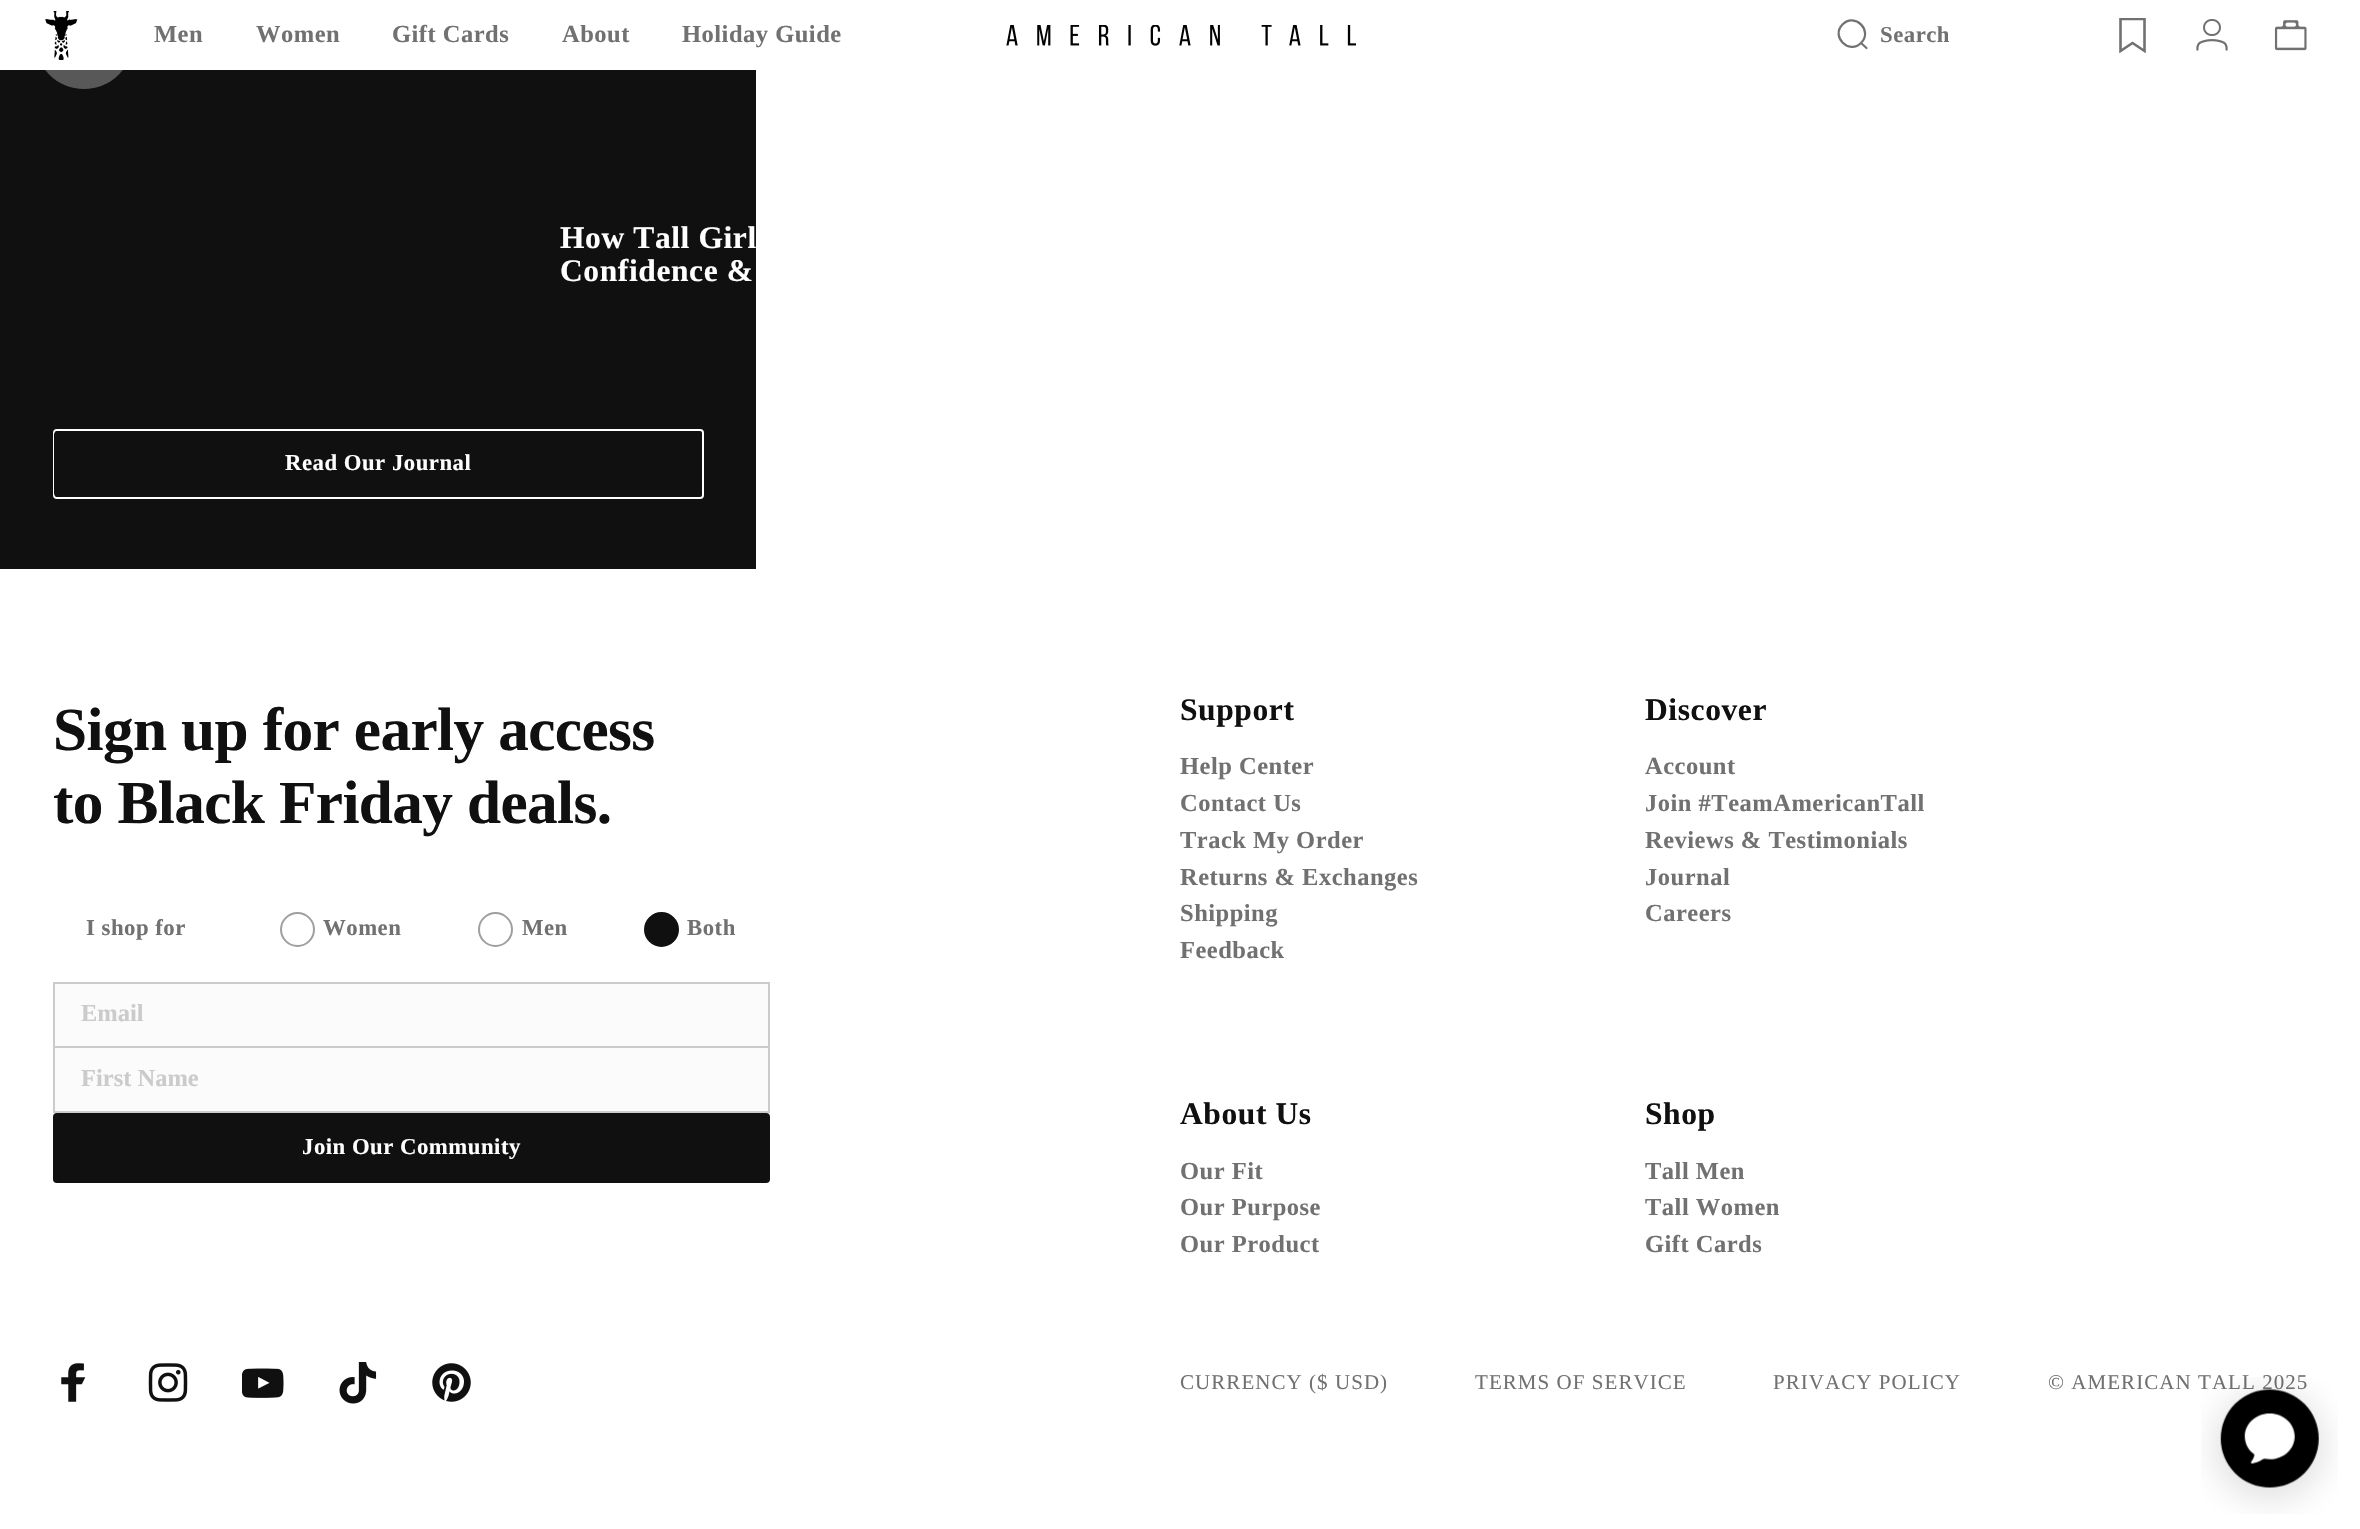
#include "include/core/SkBlurTypes.h"
#include "include/core/SkCanvas.h"
#include "include/core/SkData.h"
#include "include/core/SkFont.h"
#include "include/core/SkFontMgr.h"
#include "include/core/SkImage.h"
#include "include/core/SkMaskFilter.h"
#include "include/core/SkPaint.h"
#include "include/core/SkPathBuilder.h"
#include "include/core/SkTextBlob.h"
#include "include/effects/SkDashPathEffect.h"
#include "include/effects/SkGradientShader.h"
#include "include/utils/SkParsePath.h"

extern sk_sp<SkFontMgr> fontMgr;

static SkFont font(const char* family, int weight, float size, bool italic = false) {
    SkFontStyle style(weight, SkFontStyle::kNormal_Width,
        italic ? SkFontStyle::kItalic_Slant : SkFontStyle::kUpright_Slant);
    SkFont result(fontMgr->matchFamilyStyle(family, style), size);
    result.setSubpixel(true);
    return result;
}

static void drawLabel(SkCanvas* canvas, const char* s, float x, float y, const SkFont& font, SkColor color) {
    SkPaint ink(SkColor4f::FromColor(color));
    ink.setAntiAlias(true);
    canvas->drawString(s, x, y, font, ink);
}

static void drawTracked(SkCanvas* canvas, const char* s, float x, float y, const SkFont& font, const SkPaint& ink, float letter, float word) {
    std::vector<SkGlyphID> glyphs(font.countText(s, strlen(s), SkTextEncoding::kUTF8));
    std::vector<float> xs(glyphs.size());
    font.textToGlyphs(s, strlen(s), SkTextEncoding::kUTF8, glyphs);
    font.getXPos(glyphs, xs, x);
    float extra = 0;
    for (size_t i = 0; i < glyphs.size(); i++) {
        xs[i] += extra;
        extra += letter + word * (glyphs[i] == font.unicharToGlyph(' '));
    }
    canvas->drawTextBlob(SkTextBlob::MakeFromPosHGlyphs(glyphs, xs, y, font), 0, 0, ink);
}

static void fillRect(SkCanvas* canvas, float x, float y, float w, float h, SkColor color) {
    SkPaint ink(SkColor4f::FromColor(color));
    ink.setAntiAlias(true);
    canvas->drawRect(SkRect::MakeXYWH(x, y, w, h), ink);
}

static void fillRRect(SkCanvas* canvas, float x, float y, float w, float h, float radius, SkColor color) {
    SkPaint ink(SkColor4f::FromColor(color));
    ink.setAntiAlias(true);
    canvas->drawRoundRect(SkRect::MakeXYWH(x, y, w, h), radius, radius, ink);
}

static void drawPhoto(SkCanvas* canvas, const char* path, float x, float y, float w, float h) {
    auto image = SkImages::DeferredFromEncodedData(SkData::MakeFromFileName(path));
    canvas->drawImageRect(image, SkRect::MakeXYWH(x, y, w, h), SkSamplingOptions());
}

static SkPath parsePath(const char* data, bool evenOdd = false) {
    SkPath result = *SkParsePath::FromSVGString(data);
    if (evenOdd) result.setFillType(SkPathFillType::kEvenOdd);
    return result;
}

void draw(SkCanvas* canvas) {
    SkPaint paint;
    paint.setAntiAlias(true);
    canvas->clear(0xFFFFFFFF);
    fillRect(canvas, 0, 70, 756, 499, 0xFF101010);
    paint.setColor(0xFF585858);
    canvas->drawCircle(84, 40, 49, paint);
    fillRect(canvas, 35, 0, 98, 70, 0xFFFFFFFF);
    drawPhoto(canvas, "assets/img1.png", 45, 11, 33, 49);
    SkFont font1 = font("Liberation Serif", 700, 24.5f);
    paint.setColor(0xFF717171);
    drawTracked(canvas, "Men", 154, 42, font1, paint, 0.5f, 0);
    drawTracked(canvas, "Women", 256, 42, font1, paint, 0.5f, 0);
    drawTracked(canvas, "Gift Cards", 392, 42, font1, paint, 0.5f, 0);
    drawTracked(canvas, "About", 562, 42, font1, paint, 0.5f, 0);
    drawTracked(canvas, "Holiday Guide", 682, 42, font1, paint, 0.5f, 0);
    drawPhoto(canvas, "assets/img2.png", 1006, 25, 350, 21);
    paint.setStroke(true);
    paint.setStrokeWidth(2.2f);
    paint.setStrokeCap(SkPaint::kRound_Cap);
    canvas->drawPath(parsePath("M1866.5 48L1861 43M1861 43C1873.5 30.5 1854.5 12 1842.5 24.5C1830.5 36.5 1849 55 1861 43Z"), paint);
    SkFont font2 = font("Liberation Serif", 700, 22.75f);
    paint.setStroke(false);
    drawTracked(canvas, "Search", 1880, 42, font2, paint, 0.5f, 0);
    canvas->save();
    canvas->clipRect(SkRect::MakeXYWH(2116, 18, 35, 35));
    paint.setStroke(true);
    paint.setStrokeWidth(2.6f);
    paint.setStrokeCap(SkPaint::kButt_Cap);
    canvas->drawPath(parsePath("M2144.5 51L2132.5 43L2120.5 51V19H2144.5Z"), paint);
    canvas->restore();
    drawPhoto(canvas, "assets/img3.png", 2196, 19, 32, 32);
    drawPhoto(canvas, "assets/img4.png", 2274, 20, 33, 31);
    SkFont font3 = font("Liberation Serif", 700, 31.5f);
    paint.setStroke(false);
    paint.setColor(0xFFFFFFFF);
    drawTracked(canvas, "How Tall Girl", 560, 248, font3, paint, 0.6f, 0);
    drawTracked(canvas, "Confidence &", 560, 281, font3, paint, 0.6f, 0);
    paint.setStroke(true);
    paint.setStrokeWidth(2);
    canvas->drawRoundRect(SkRect::MakeXYWH(54, 430, 649, 68), 3, 3, paint);
    paint.setColor(0xFF101010);
    canvas->drawRoundRect(SkRect::MakeXYWH(55, 432, 646, 64), 3, 3, paint);
    paint.setStroke(false);
    paint.setColor(0xFFFFFFFF);
    drawTracked(canvas, "Read Our Journal", 285, 470, font2, paint, 0.5f, 0);
    SkFont font4 = font("Liberation Serif", 700, 61.25f);
    paint.setColor(0xFF101010);
    drawTracked(canvas, "Sign up for early access", 53, 750, font4, paint, -0.6f, 0);
    drawTracked(canvas, "to Black Friday deals.", 53, 823, font4, paint, -0.6f, 0);
    paint.setColor(0xFF717171);
    drawTracked(canvas, "I shop for", 86, 935, font2, paint, 0.5f, 0);
    paint.setStroke(true);
    paint.setColor(0xFF9F9F9F);
    canvas->drawCircle(297.5f, 929.5f, 16.5f, paint);
    paint.setStroke(false);
    paint.setColor(0xFF717171);
    drawTracked(canvas, "Women", 323, 935, font2, paint, 0.5f, 0);
    paint.setStroke(true);
    paint.setColor(0xFF9F9F9F);
    canvas->drawCircle(495.5f, 929.5f, 16.5f, paint);
    paint.setStroke(false);
    paint.setColor(0xFF717171);
    drawTracked(canvas, "Men", 522, 935, font2, paint, 0.5f, 0);
    paint.setColor(0xFF101010);
    canvas->drawCircle(661.5f, 929.5f, 16.5f, paint);
    paint.setStroke(true);
    canvas->drawCircle(661.5f, 929.5f, 16.5f, paint);
    paint.setStroke(false);
    paint.setColor(0xFF717171);
    drawTracked(canvas, "Both", 687, 935, font2, paint, 0.5f, 0);
    paint.setColor(0xFFFBFBFB);
    canvas->drawRect(SkRect::MakeXYWH(54, 983, 715, 64), paint);
    paint.setStroke(true);
    paint.setColor(0xFFCBCBCB);
    canvas->drawRect(SkRect::MakeXYWH(54, 983, 715, 64), paint);
    drawLabel(canvas, "Email", 81, 1021, font1, 0xFFCBCBCB);
    fillRect(canvas, 55, 1048, 713, 63, 0xFFFBFBFB);
    fillRect(canvas, 768, 1048, 2, 65, 0xFFCBCBCB);
    fillRect(canvas, 53, 1111, 717, 2, 0xFFCBCBCB);
    fillRect(canvas, 53, 1048, 2, 65, 0xFFCBCBCB);
    drawLabel(canvas, "First Name", 81, 1086, font1, 0xFFCBCBCB);
    fillRRect(canvas, 53, 1113, 717, 70, 4, 0xFF101010);
    paint.setStroke(false);
    paint.setColor(0xFFFFFFFF);
    drawTracked(canvas, "Join Our Community", 302, 1154, font2, paint, 0.5f, 0);
    paint.setColor(0xFF101010);
    drawTracked(canvas, "Support", 1180, 720, font3, paint, 0.6f, 0);
    paint.setColor(0xFF717171);
    drawTracked(canvas, "Help Center", 1180, 774, font1, paint, 0.5f, 0);
    drawTracked(canvas, "Contact Us", 1180, 811, font1, paint, 0.5f, 0);
    drawTracked(canvas, "Track My Order", 1180, 848, font1, paint, 0.5f, 0);
    drawTracked(canvas, "Returns & Exchanges", 1180, 885, font1, paint, 0.5f, 0);
    drawTracked(canvas, "Shipping", 1180, 921, font1, paint, 0.5f, 0);
    drawTracked(canvas, "Feedback", 1180, 958, font1, paint, 0.5f, 0);
    paint.setColor(0xFF101010);
    drawTracked(canvas, "Discover", 1645, 720, font3, paint, 0.6f, 0);
    paint.setColor(0xFF717171);
    drawTracked(canvas, "Account", 1645, 774, font1, paint, 0.5f, 0);
    drawTracked(canvas, "Join #TeamAmericanTall", 1645, 811, font1, paint, 0.5f, 0);
    drawTracked(canvas, "Reviews & Testimonials", 1645, 848, font1, paint, 0.5f, 0);
    drawTracked(canvas, "Journal", 1645, 885, font1, paint, 0.5f, 0);
    drawTracked(canvas, "Careers", 1645, 921, font1, paint, 0.5f, 0);
    paint.setColor(0xFF101010);
    drawTracked(canvas, "About Us", 1180, 1124, font3, paint, 0.6f, 0);
    paint.setColor(0xFF717171);
    drawTracked(canvas, "Our Fit", 1180, 1179, font1, paint, 0.5f, 0);
    drawTracked(canvas, "Our Purpose", 1180, 1215, font1, paint, 0.5f, 0);
    drawTracked(canvas, "Our Product", 1180, 1252, font1, paint, 0.5f, 0);
    paint.setColor(0xFF101010);
    drawTracked(canvas, "Shop", 1645, 1124, font3, paint, 0.6f, 0);
    paint.setColor(0xFF717171);
    drawTracked(canvas, "Tall Men", 1645, 1179, font1, paint, 0.5f, 0);
    drawTracked(canvas, "Tall Women", 1645, 1215, font1, paint, 0.5f, 0);
    drawTracked(canvas, "Gift Cards", 1645, 1252, font1, paint, 0.5f, 0);
    drawPhoto(canvas, "assets/img5.png", 61, 1363, 25, 39);
    drawPhoto(canvas, "assets/img6.png", 148, 1363, 40, 39);
    drawPhoto(canvas, "assets/img7.png", 242, 1368, 42, 30);
    drawPhoto(canvas, "assets/img8.png", 339, 1362, 38, 42);
    drawPhoto(canvas, "assets/img9.png", 432, 1363, 39, 39);
    SkFont font5 = font("Liberation Serif", 400, 21);
    drawTracked(canvas, "CURRENCY ($ USD)", 1180, 1389, font5, paint, 1.05f, 0);
    drawTracked(canvas, "TERMS OF SERVICE", 1475, 1389, font5, paint, 1.05f, 0);
    drawTracked(canvas, "PRIVACY POLICY", 1773, 1389, font5, paint, 1.05f, 0);
    drawTracked(canvas, "© AMERICAN TALL 2025", 2048, 1389, font5, paint, 1.05f, 0);
    drawPhoto(canvas, "assets/img10.png", 2201, 1377, 137, 137);
}
